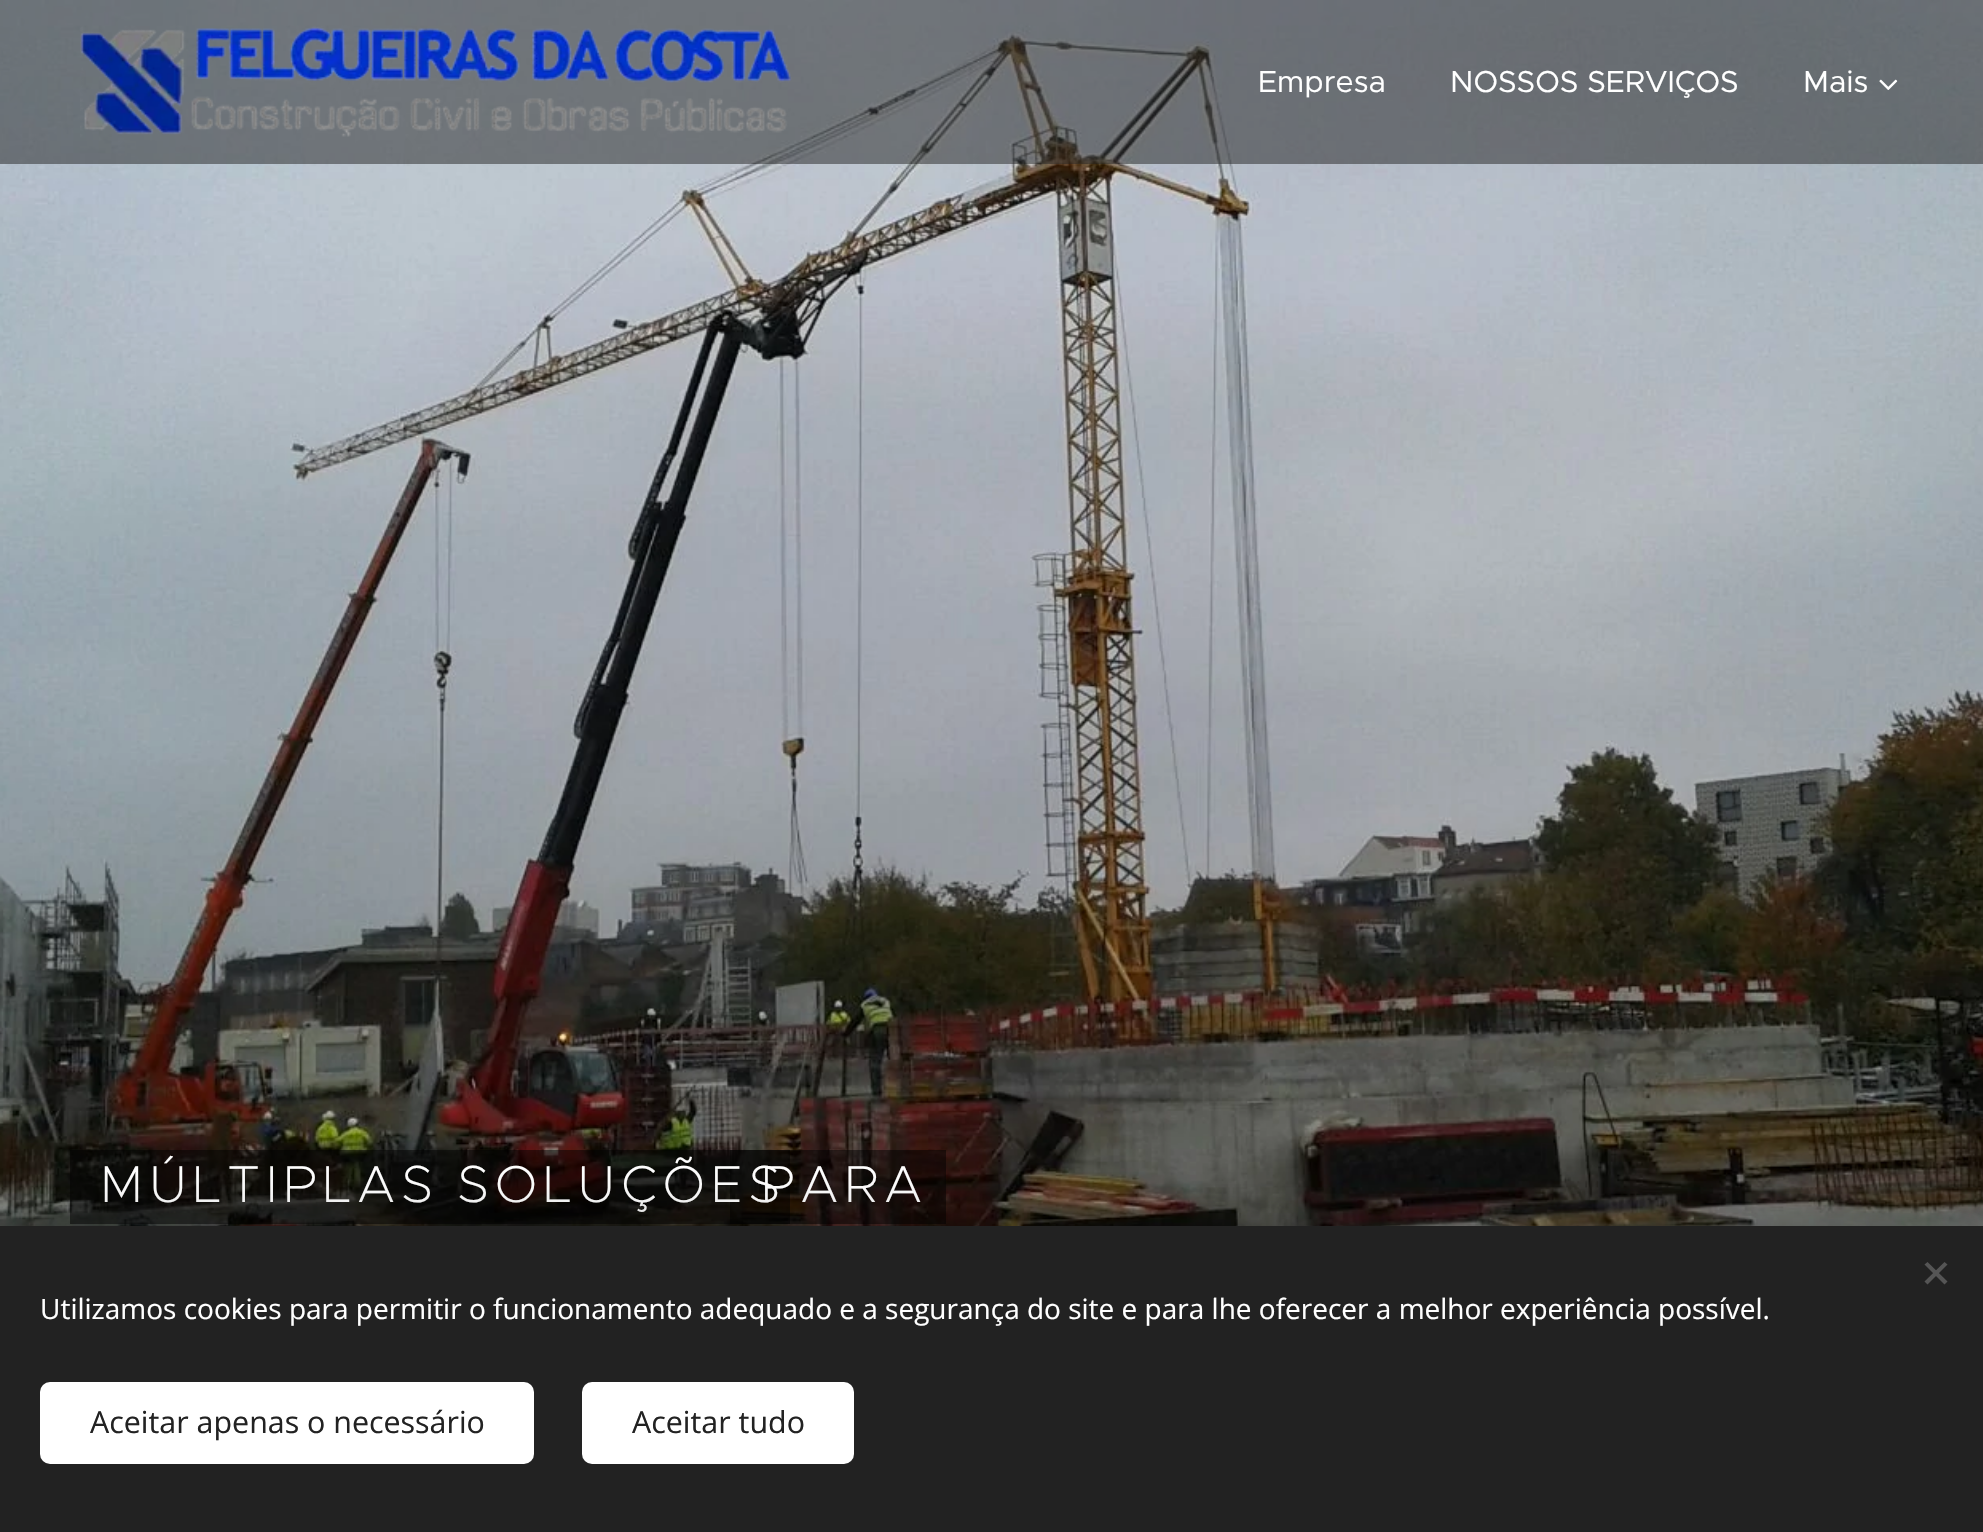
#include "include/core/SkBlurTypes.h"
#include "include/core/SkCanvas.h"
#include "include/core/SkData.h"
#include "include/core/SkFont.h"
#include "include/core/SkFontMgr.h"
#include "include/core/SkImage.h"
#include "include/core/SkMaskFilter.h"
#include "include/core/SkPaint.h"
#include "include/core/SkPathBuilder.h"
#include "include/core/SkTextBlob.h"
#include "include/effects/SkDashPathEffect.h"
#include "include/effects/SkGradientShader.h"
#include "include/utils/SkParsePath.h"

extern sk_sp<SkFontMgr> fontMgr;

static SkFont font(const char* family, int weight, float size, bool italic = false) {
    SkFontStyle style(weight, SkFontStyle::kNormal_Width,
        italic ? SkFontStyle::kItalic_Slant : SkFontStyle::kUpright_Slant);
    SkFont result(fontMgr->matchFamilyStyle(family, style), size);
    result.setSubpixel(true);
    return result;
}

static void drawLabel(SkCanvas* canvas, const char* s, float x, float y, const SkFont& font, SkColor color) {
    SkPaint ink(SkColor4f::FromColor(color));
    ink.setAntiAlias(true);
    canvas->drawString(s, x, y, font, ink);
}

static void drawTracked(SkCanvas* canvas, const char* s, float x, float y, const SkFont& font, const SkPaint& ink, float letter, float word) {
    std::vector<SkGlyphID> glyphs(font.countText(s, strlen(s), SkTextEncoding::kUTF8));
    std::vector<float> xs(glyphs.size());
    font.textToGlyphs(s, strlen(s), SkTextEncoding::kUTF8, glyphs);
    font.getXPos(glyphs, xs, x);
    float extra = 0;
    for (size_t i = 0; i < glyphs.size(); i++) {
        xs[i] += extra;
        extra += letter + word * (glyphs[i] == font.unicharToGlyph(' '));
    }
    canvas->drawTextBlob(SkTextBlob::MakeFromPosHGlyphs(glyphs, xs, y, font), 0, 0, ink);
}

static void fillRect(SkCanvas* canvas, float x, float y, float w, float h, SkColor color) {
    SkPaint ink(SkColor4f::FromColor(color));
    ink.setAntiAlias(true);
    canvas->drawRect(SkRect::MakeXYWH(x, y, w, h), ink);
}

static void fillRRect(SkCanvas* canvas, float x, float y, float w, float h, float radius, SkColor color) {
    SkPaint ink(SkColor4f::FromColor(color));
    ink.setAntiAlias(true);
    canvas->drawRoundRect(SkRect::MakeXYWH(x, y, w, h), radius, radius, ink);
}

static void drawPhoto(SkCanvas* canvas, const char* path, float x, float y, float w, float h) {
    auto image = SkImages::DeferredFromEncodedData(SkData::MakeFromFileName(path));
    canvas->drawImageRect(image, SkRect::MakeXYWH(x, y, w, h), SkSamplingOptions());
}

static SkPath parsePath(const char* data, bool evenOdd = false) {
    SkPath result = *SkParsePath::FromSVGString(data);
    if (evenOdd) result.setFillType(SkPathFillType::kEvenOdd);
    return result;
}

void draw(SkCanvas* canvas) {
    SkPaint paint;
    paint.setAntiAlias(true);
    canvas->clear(0xFFFFFFFF);
    drawPhoto(canvas, "assets/img3.png", 0, 0, 1983, 1226);
    fillRect(canvas, 0, 0, 1983, 164, 0x80222222);
    drawPhoto(canvas, "assets/img1.png", 80, 26, 712, 111);
    SkFont font1 = font("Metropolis", 400, 30.4f);
    drawLabel(canvas, "Empresa", 1258, 92, font1, 0xFFFFFFFF);
    drawLabel(canvas, "NOSSOS SERVIÇOS", 1450, 92, font1, 0xFFFFFFFF);
    drawLabel(canvas, "Mais", 1803, 92, font1, 0xFFFFFFFF);
    drawPhoto(canvas, "assets/img2.png", 1879, 79, 19, 11);
    fillRect(canvas, 100, 1150, 660, 74, 0x80000000);
    fillRect(canvas, 730, 1150, 30, 74, 0x80000000);
    fillRect(canvas, 760, 1150, 30, 74, 0x80000000);
    fillRect(canvas, 760, 1150, 156, 74, 0x80000000);
    SkFont font2 = font("Metropolis", 200, 52);
    paint.setColor(0xFFFFFFFF);
    drawTracked(canvas, "MÚLTIPLAS SOLUÇÕES", 100, 1202, font2, paint, 6.25f, -3);
    fillRect(canvas, 70, 1150, 30, 74, 0x80000000);
    fillRect(canvas, 916, 1150, 30, 74, 0x80000000);
    drawTracked(canvas, "PARA", 761, 1202, font2, paint, 6.25f, 0);
    paint.setColor(0x54000000);
    paint.setMaskFilter(SkMaskFilter::MakeBlur(kNormal_SkBlurStyle, 25));
    canvas->drawRect(SkRect::MakeXYWH(0, 1226, 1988, 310), paint);
    paint.setMaskFilter(nullptr);
    fillRect(canvas, 0, 1226, 1983, 306, 0xFF222222);
    paint.setColor(0xFF555555);
    canvas->drawPath(parsePath("M1924.5 1281.5L1944.5 1262L1947.5 1264.5L1927.5 1284.5Z"), paint);
    canvas->drawPath(parsePath("M1927.5 1262L1947.5 1281.5L1944.5 1284.5L1924.5 1264.5Z"), paint);
    SkFont font3 = font("Open Sans", 400, 28);
    drawLabel(canvas, "Utilizamos cookies para permitir o funcionamento adequado e a segurança do site e para lhe oferecer a melhor experiência possível.", 40, 1319, font3, 0xFFFFFFFF);
    fillRRect(canvas, 40, 1382, 494, 82, 10, 0xFFFFFFFF);
    SkFont font4 = font("Open Sans", 400, 30.4f);
    drawLabel(canvas, "Aceitar apenas o necessário", 90, 1433, font4, 0xFF222222);
    fillRRect(canvas, 582, 1382, 272, 82, 10, 0xFFFFFFFF);
    drawLabel(canvas, "Aceitar tudo", 632, 1433, font4, 0xFF222222);
}
